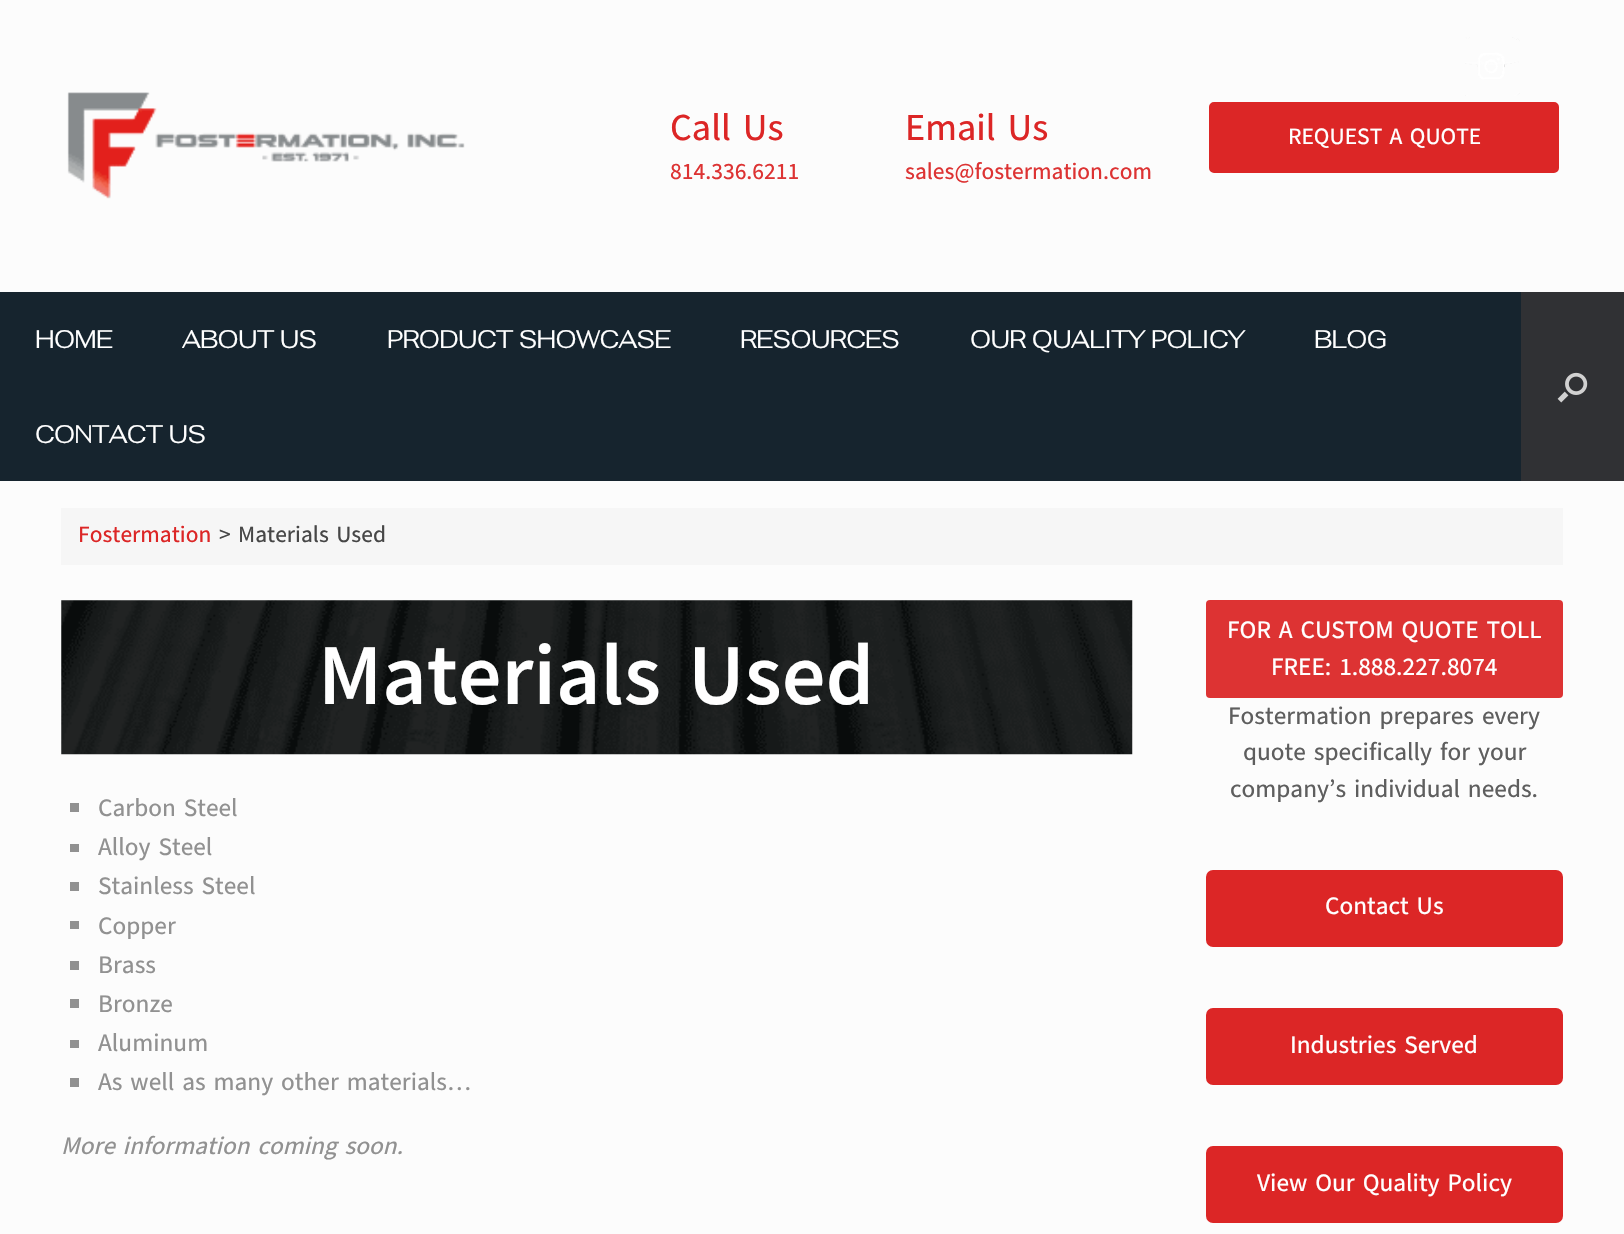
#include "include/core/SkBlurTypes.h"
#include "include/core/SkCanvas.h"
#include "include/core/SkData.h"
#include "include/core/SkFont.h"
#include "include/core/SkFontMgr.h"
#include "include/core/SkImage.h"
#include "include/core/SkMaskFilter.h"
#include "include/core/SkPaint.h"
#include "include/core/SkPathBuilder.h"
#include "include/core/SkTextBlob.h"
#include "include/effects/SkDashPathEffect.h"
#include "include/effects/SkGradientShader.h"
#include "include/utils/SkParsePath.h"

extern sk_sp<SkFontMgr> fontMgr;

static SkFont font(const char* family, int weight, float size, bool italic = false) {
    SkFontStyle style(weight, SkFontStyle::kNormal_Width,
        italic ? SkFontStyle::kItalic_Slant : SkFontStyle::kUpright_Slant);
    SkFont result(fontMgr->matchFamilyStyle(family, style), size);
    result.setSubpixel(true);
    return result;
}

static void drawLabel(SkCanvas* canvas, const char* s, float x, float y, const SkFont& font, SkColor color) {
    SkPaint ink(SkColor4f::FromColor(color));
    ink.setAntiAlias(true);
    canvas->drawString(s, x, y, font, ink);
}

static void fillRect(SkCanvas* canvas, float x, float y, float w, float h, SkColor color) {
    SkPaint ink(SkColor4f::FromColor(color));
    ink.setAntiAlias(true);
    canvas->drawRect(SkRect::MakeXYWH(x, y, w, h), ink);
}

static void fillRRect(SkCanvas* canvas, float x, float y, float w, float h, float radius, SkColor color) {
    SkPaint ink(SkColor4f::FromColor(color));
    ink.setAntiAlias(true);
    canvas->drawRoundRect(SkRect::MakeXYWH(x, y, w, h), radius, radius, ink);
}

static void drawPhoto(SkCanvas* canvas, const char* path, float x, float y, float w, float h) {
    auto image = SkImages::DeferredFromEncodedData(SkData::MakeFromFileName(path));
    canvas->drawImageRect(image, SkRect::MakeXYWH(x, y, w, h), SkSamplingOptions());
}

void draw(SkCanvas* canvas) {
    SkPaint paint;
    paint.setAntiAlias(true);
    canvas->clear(0xFFFCFCFC);
    drawPhoto(canvas, "assets/img1.png", 1465, 37, 55, 59);
    drawPhoto(canvas, "assets/img2.png", 67, 92, 398, 107);
    SkFont font1 = font("Akatab", 500, 37);
    drawLabel(canvas, "Call Us", 670, 140, font1, 0xFFDC2626);
    SkFont font2 = font("Akatab", 500, 22.75f);
    drawLabel(canvas, "814.336.6211", 670, 179, font2, 0xFFDD3333);
    drawLabel(canvas, "Email Us", 905, 140, font1, 0xFFDC2626);
    drawLabel(canvas, "sales@fostermation.com", 905, 179, font2, 0xFFDD3333);
    paint.setColor(0xFFDC2626);
    canvas->drawRoundRect(SkRect::MakeXYWH(1210, 103, 348, 69), 4, 4, paint);
    paint.setStroke(true);
    paint.setStrokeWidth(2);
    canvas->drawRoundRect(SkRect::MakeXYWH(1210, 103, 348, 69), 4, 4, paint);
    drawLabel(canvas, "REQUEST A QUOTE", 1288, 144, font2, 0xFFFFFFFF);
    fillRect(canvas, 0, 292, 1521, 189, 0xFF16242E);
    SkFont font3 = font("Fahkwang", 700, 24.5f);
    drawLabel(canvas, "HOME", 35, 348, font3, 0xFFFFFFFF);
    drawLabel(canvas, "ABOUT US", 182, 348, font3, 0xFFFFFFFF);
    drawLabel(canvas, "PRODUCT SHOWCASE", 387, 348, font3, 0xFFFFFFFF);
    drawLabel(canvas, "RESOURCES", 740, 348, font3, 0xFFFFFFFF);
    drawLabel(canvas, "OUR QUALITY POLICY", 970, 348, font3, 0xFFFFFFFF);
    drawLabel(canvas, "BLOG", 1314, 348, font3, 0xFFFFFFFF);
    drawLabel(canvas, "CONTACT US", 35, 443, font3, 0xFFFFFFFF);
    fillRect(canvas, 1521, 292, 103, 189, 0xFF303134);
    drawPhoto(canvas, "assets/img3.png", 1557, 372, 31, 31);
    fillRect(canvas, 61, 508, 1502, 57, 0xFFF6F6F6);
    drawLabel(canvas, "Fostermation", 78, 542, font2, 0xFFDC2626);
    drawLabel(canvas, "> Materials Used", 219, 542, font2, 0xFF474747);
    drawPhoto(canvas, "assets/img4.png", 61, 600, 1072, 155);
    SkFont font4 = font("Akatab", 700, 84);
    drawLabel(canvas, "Materials Used", 318, 704, font4, 0xFFFFFFFF);
    fillRect(canvas, 70, 803, 9, 9, 0xFF919191);
    SkFont font5 = font("Akatab", 500, 24.5f);
    drawLabel(canvas, "Carbon Steel", 98, 816, font5, 0xFF919191);
    fillRect(canvas, 70, 844, 9, 8, 0xFF919191);
    drawLabel(canvas, "Alloy Steel", 98, 855, font5, 0xFF919191);
    fillRect(canvas, 70, 882, 9, 9, 0xFF919191);
    drawLabel(canvas, "Stainless Steel", 98, 894, font5, 0xFF919191);
    fillRect(canvas, 70, 921, 9, 8, 0xFF919191);
    drawLabel(canvas, "Copper", 98, 934, font5, 0xFF919191);
    fillRect(canvas, 70, 961, 9, 9, 0xFF919191);
    drawLabel(canvas, "Brass", 98, 973, font5, 0xFF919191);
    fillRect(canvas, 70, 999, 9, 9, 0xFF919191);
    drawLabel(canvas, "Bronze", 98, 1012, font5, 0xFF919191);
    fillRect(canvas, 70, 1040, 9, 8, 0xFF919191);
    drawLabel(canvas, "Aluminum", 98, 1051, font5, 0xFF919191);
    fillRect(canvas, 70, 1078, 9, 9, 0xFF919191);
    drawLabel(canvas, "As well as many other materials…", 98, 1090, font5, 0xFF919191);
    SkFont font6 = font("Akatab", 500, 24.5f, true);
    drawLabel(canvas, "More information coming soon.", 61, 1154, font6, 0xFF919191);
    fillRRect(canvas, 1206, 600, 357, 98, 4, 0xFFDD3333);
    drawLabel(canvas, "FOR A CUSTOM QUOTE TOLL", 1227, 638, font5, 0xFFFFFFFF);
    drawLabel(canvas, "FREE: 1.888.227.8074", 1271, 675, font5, 0xFFFFFFFF);
    drawLabel(canvas, "Fostermation prepares every", 1228, 724, font5, 0xFF5E5E5E);
    drawLabel(canvas, "quote specifically for your", 1243, 760, font5, 0xFF5E5E5E);
    drawLabel(canvas, "company’s individual needs.", 1230, 797, font5, 0xFF5E5E5E);
    paint.setStroke(false);
    canvas->drawRoundRect(SkRect::MakeXYWH(1207, 871, 355, 75), 6, 6, paint);
    paint.setStroke(true);
    canvas->drawRoundRect(SkRect::MakeXYWH(1207, 871, 355, 75), 6, 6, paint);
    drawLabel(canvas, "Contact Us", 1325, 914, font5, 0xFFFFFFFF);
    paint.setStroke(false);
    canvas->drawRoundRect(SkRect::MakeXYWH(1207, 1009, 355, 75), 6, 6, paint);
    paint.setStroke(true);
    canvas->drawRoundRect(SkRect::MakeXYWH(1207, 1009, 355, 75), 6, 6, paint);
    drawLabel(canvas, "Industries Served", 1290, 1053, font5, 0xFFFFFFFF);
    paint.setStroke(false);
    canvas->drawRoundRect(SkRect::MakeXYWH(1207, 1147, 355, 75), 6, 6, paint);
    paint.setStroke(true);
    canvas->drawRoundRect(SkRect::MakeXYWH(1207, 1147, 355, 75), 6, 6, paint);
    drawLabel(canvas, "View Our Quality Policy", 1257, 1191, font5, 0xFFFFFFFF);
}
